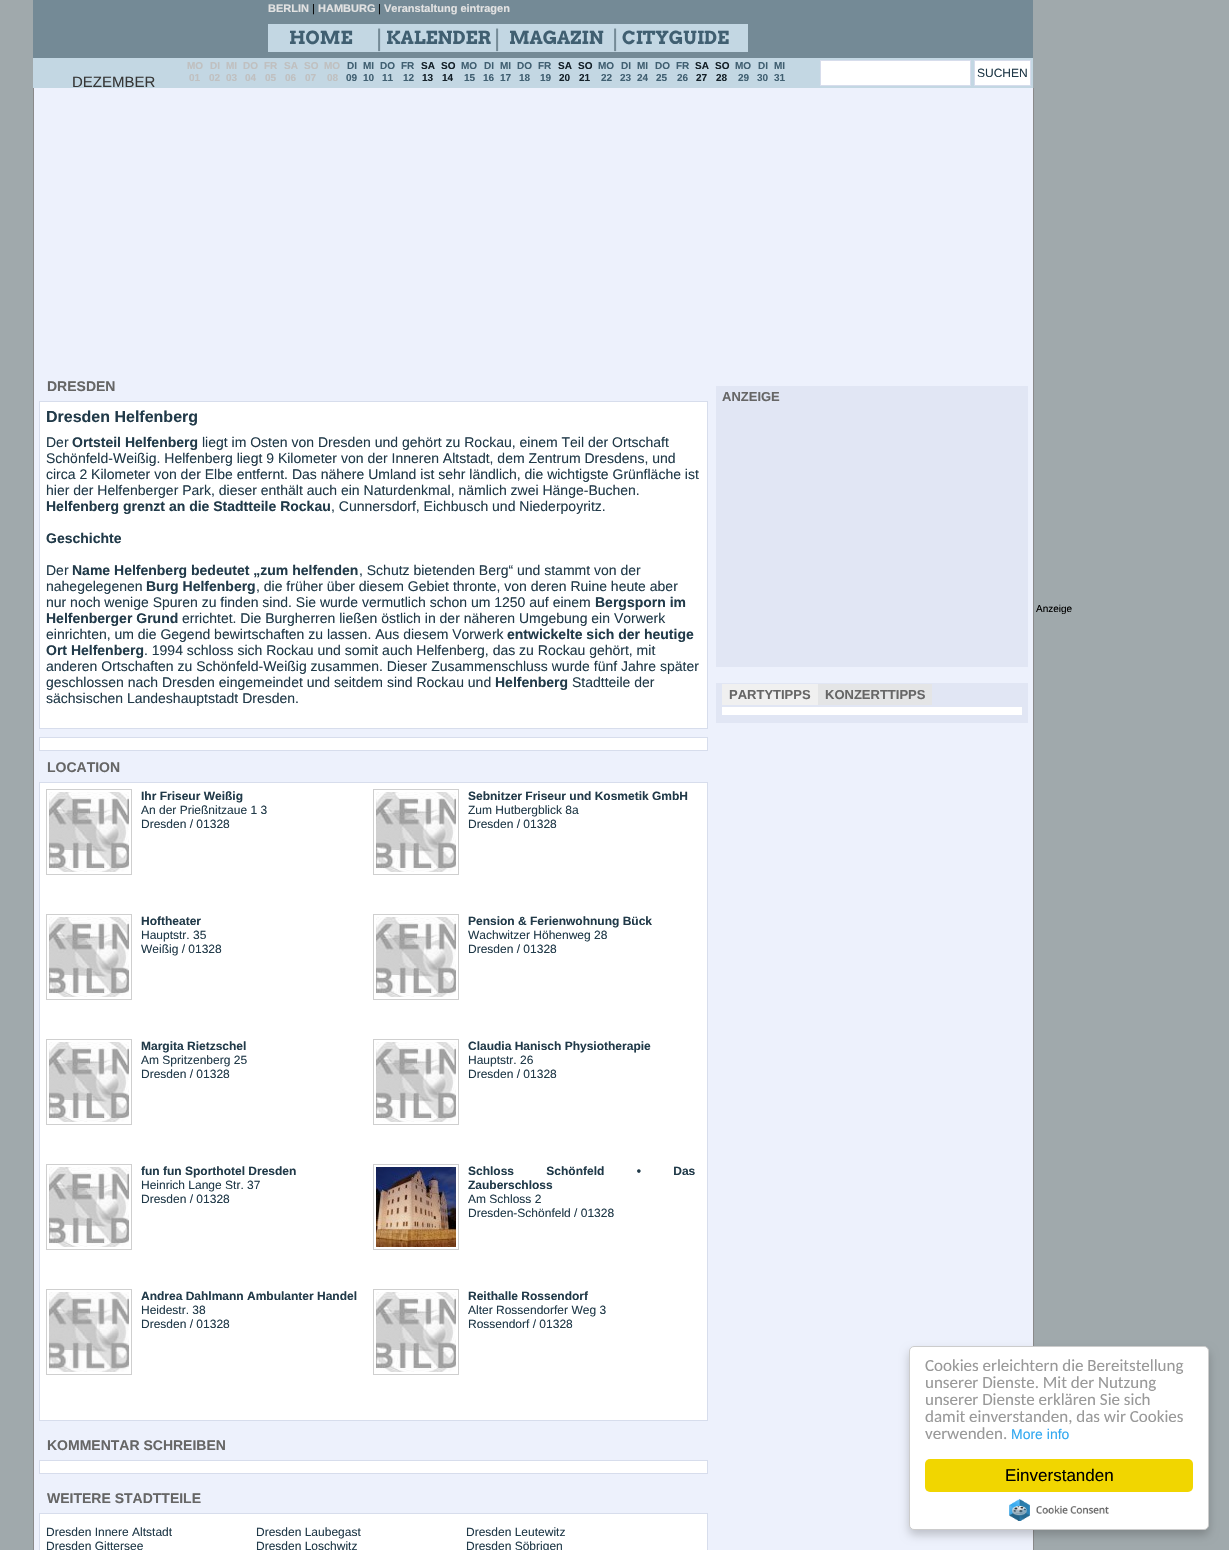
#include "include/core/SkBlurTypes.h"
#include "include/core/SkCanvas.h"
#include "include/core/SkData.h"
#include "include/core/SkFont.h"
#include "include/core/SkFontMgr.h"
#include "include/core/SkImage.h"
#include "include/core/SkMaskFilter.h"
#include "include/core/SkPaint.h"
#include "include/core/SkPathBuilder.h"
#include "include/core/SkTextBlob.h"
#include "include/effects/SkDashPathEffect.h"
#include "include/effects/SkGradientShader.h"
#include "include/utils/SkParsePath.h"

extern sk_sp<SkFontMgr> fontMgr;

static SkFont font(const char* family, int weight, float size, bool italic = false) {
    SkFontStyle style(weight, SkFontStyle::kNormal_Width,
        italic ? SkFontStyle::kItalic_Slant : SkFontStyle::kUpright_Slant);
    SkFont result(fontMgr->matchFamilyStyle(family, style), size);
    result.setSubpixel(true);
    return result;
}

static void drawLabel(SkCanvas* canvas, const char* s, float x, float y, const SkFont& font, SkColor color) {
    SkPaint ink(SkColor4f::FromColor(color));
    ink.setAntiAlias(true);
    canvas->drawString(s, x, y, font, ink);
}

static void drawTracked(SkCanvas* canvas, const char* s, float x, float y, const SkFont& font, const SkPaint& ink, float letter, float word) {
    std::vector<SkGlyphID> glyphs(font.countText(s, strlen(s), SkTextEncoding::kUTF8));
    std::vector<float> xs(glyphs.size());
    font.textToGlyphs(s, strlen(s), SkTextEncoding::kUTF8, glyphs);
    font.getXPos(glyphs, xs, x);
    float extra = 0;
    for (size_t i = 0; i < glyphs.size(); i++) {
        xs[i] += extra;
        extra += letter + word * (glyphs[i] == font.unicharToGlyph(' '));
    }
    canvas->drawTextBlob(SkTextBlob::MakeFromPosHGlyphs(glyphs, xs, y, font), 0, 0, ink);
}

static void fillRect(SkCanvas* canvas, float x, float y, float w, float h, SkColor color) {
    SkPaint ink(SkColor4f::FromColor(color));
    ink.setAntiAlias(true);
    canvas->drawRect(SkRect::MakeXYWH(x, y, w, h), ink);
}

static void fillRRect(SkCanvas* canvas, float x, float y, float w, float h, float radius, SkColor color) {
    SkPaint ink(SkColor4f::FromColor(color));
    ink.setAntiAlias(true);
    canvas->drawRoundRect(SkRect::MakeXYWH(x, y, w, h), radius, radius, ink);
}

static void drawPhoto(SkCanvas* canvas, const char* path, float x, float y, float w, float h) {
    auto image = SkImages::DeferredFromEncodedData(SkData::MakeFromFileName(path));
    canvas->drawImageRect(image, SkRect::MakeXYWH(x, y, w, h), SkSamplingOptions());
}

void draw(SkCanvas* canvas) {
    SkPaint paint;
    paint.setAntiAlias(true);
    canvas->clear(0xFFA0A9AC);
    fillRect(canvas, 33, 0, 1000, 58, 0xFF748A96);
    SkFont font1 = font("Liberation Sans", 700, 11);
    drawLabel(canvas, "BERLIN", 268, 12, font1, 0xFFE2E2E2);
    SkFont font2 = font("Liberation Sans", 400, 11);
    drawLabel(canvas, "|", 312, 12, font2, 0xFF000000);
    drawLabel(canvas, "HAMBURG", 318, 12, font1, 0xFFE2E2E2);
    drawLabel(canvas, "|", 378, 12, font2, 0xFF000000);
    drawLabel(canvas, "Veranstaltung eintragen", 384, 12, font1, 0xFFE2E2E2);
    fillRect(canvas, 268, 24, 480, 28, 0xFFC3D7E3);
    SkFont font3 = font("Arvo", 700, 18);
    drawLabel(canvas, "HOME", 289, 44, font3, 0xFF405F71);
    SkFont font4 = font("Liberation Sans", 400, 24);
    drawLabel(canvas, "|", 376, 46, font4, 0xFF748A96);
    drawLabel(canvas, "KALENDER", 386, 44, font3, 0xFF405F71);
    drawLabel(canvas, "|", 494, 46, font4, 0xFF748A96);
    drawLabel(canvas, "MAGAZIN", 509, 44, font3, 0xFF405F71);
    drawLabel(canvas, "|", 612, 46, font4, 0xFF748A96);
    drawLabel(canvas, "CITYGUIDE", 622, 44, font3, 0xFF405F71);
    fillRect(canvas, 33, 58, 1000, 30, 0xFFC3D7E3);
    SkFont font5 = font("Liberation Sans", 700, 10);
    drawLabel(canvas, "MO", 187, 69, font5, 0xFFC0C0C0);
    drawLabel(canvas, "01", 189, 81, font5, 0xFFC0C0C0);
    drawLabel(canvas, "DI", 210, 69, font5, 0xFFC0C0C0);
    drawLabel(canvas, "02", 209, 81, font5, 0xFFC0C0C0);
    drawLabel(canvas, "MI", 226, 69, font5, 0xFFC0C0C0);
    drawLabel(canvas, "03", 226, 81, font5, 0xFFC0C0C0);
    drawLabel(canvas, "DO", 243, 69, font5, 0xFFC0C0C0);
    drawLabel(canvas, "04", 245, 81, font5, 0xFFC0C0C0);
    drawLabel(canvas, "FR", 264, 69, font5, 0xFFC0C0C0);
    drawLabel(canvas, "05", 265, 81, font5, 0xFFC0C0C0);
    drawLabel(canvas, "SA", 284, 69, font5, 0xFFC0C0C0);
    drawLabel(canvas, "06", 285, 81, font5, 0xFFC0C0C0);
    drawLabel(canvas, "SO", 304, 69, font5, 0xFFC0C0C0);
    drawLabel(canvas, "07", 305, 81, font5, 0xFFC0C0C0);
    drawLabel(canvas, "MO", 324, 69, font5, 0xFFC0C0C0);
    drawLabel(canvas, "08", 327, 81, font5, 0xFFC0C0C0);
    drawLabel(canvas, "DI", 347, 69, font5, 0xFF405F71);
    drawLabel(canvas, "09", 346, 81, font5, 0xFF405F71);
    drawLabel(canvas, "MI", 363, 69, font5, 0xFF405F71);
    drawLabel(canvas, "10", 363, 81, font5, 0xFF405F71);
    drawLabel(canvas, "DO", 380, 69, font5, 0xFF405F71);
    drawLabel(canvas, "11", 382, 81, font5, 0xFF405F71);
    drawLabel(canvas, "FR", 401, 69, font5, 0xFF405F71);
    drawLabel(canvas, "12", 403, 81, font5, 0xFF405F71);
    drawLabel(canvas, "SA", 421, 69, font5, 0xFF131F27);
    drawLabel(canvas, "13", 422, 81, font5, 0xFF131F27);
    drawLabel(canvas, "SO", 441, 69, font5, 0xFF131F27);
    drawLabel(canvas, "14", 442, 81, font5, 0xFF131F27);
    drawLabel(canvas, "MO", 461, 69, font5, 0xFF405F71);
    drawLabel(canvas, "15", 464, 81, font5, 0xFF405F71);
    drawLabel(canvas, "DI", 484, 69, font5, 0xFF405F71);
    drawLabel(canvas, "16", 483, 81, font5, 0xFF405F71);
    drawLabel(canvas, "MI", 500, 69, font5, 0xFF405F71);
    drawLabel(canvas, "17", 500, 81, font5, 0xFF405F71);
    drawLabel(canvas, "DO", 517, 69, font5, 0xFF405F71);
    drawLabel(canvas, "18", 519, 81, font5, 0xFF405F71);
    drawLabel(canvas, "FR", 538, 69, font5, 0xFF405F71);
    drawLabel(canvas, "19", 540, 81, font5, 0xFF405F71);
    drawLabel(canvas, "SA", 558, 69, font5, 0xFF131F27);
    drawLabel(canvas, "20", 559, 81, font5, 0xFF131F27);
    drawLabel(canvas, "SO", 578, 69, font5, 0xFF131F27);
    drawLabel(canvas, "21", 579, 81, font5, 0xFF131F27);
    drawLabel(canvas, "MO", 598, 69, font5, 0xFF405F71);
    drawLabel(canvas, "22", 601, 81, font5, 0xFF405F71);
    drawLabel(canvas, "DI", 621, 69, font5, 0xFF405F71);
    drawLabel(canvas, "23", 620, 81, font5, 0xFF405F71);
    drawLabel(canvas, "MI", 637, 69, font5, 0xFF405F71);
    drawLabel(canvas, "24", 637, 81, font5, 0xFF405F71);
    drawLabel(canvas, "DO", 655, 69, font5, 0xFF405F71);
    drawLabel(canvas, "25", 656, 81, font5, 0xFF405F71);
    drawLabel(canvas, "FR", 676, 69, font5, 0xFF405F71);
    drawLabel(canvas, "26", 677, 81, font5, 0xFF405F71);
    drawLabel(canvas, "SA", 695, 69, font5, 0xFF131F27);
    drawLabel(canvas, "27", 696, 81, font5, 0xFF131F27);
    drawLabel(canvas, "SO", 715, 69, font5, 0xFF131F27);
    drawLabel(canvas, "28", 716, 81, font5, 0xFF131F27);
    drawLabel(canvas, "MO", 735, 69, font5, 0xFF405F71);
    drawLabel(canvas, "29", 738, 81, font5, 0xFF405F71);
    drawLabel(canvas, "DI", 758, 69, font5, 0xFF405F71);
    drawLabel(canvas, "30", 757, 81, font5, 0xFF405F71);
    drawLabel(canvas, "MI", 774, 69, font5, 0xFF405F71);
    drawLabel(canvas, "31", 774, 81, font5, 0xFF405F71);
    paint.setColor(0xFFFFFFFF);
    canvas->drawRect(SkRect::MakeXYWH(820.5f, 60.5f, 150, 25), paint);
    paint.setStroke(true);
    paint.setStrokeWidth(1);
    paint.setColor(0xFFD7DDEC);
    canvas->drawRect(SkRect::MakeXYWH(820.5f, 60.5f, 150, 25), paint);
    paint.setStroke(false);
    paint.setColor(0xFFFFFFFF);
    canvas->drawRect(SkRect::MakeXYWH(974.5f, 60.5f, 56, 25), paint);
    paint.setStroke(true);
    paint.setColor(0xFFD7DDEC);
    canvas->drawRect(SkRect::MakeXYWH(974.5f, 60.5f, 56, 25), paint);
    SkFont font6 = font("Liberation Sans", 400, 12);
    drawLabel(canvas, "SUCHEN", 977, 77, font6, 0xFF213A49);
    SkFont font7 = font("Liberation Sans", 400, 15);
    drawLabel(canvas, "DEZEMBER", 72, 87, font7, 0xFF373737);
    fillRect(canvas, 34, 88, 999, 1462, 0xFFEDF1FC);
    fillRect(canvas, 1033, 88, 1, 1462, 0xFF8A8A8A);
    fillRect(canvas, 33, 88, 1, 1462, 0xFF8A8A8A);
    SkFont font8 = font("Liberation Sans", 700, 14);
    drawLabel(canvas, "DRESDEN", 47, 391, font8, 0xFF666666);
    paint.setStroke(false);
    paint.setColor(0xFFFFFFFF);
    canvas->drawRect(SkRect::MakeXYWH(39.5f, 401.5f, 668, 327), paint);
    paint.setStroke(true);
    paint.setColor(0xFFD7DDEC);
    canvas->drawRect(SkRect::MakeXYWH(39.5f, 401.5f, 668, 327), paint);
    SkFont font9 = font("Liberation Sans", 700, 16);
    drawLabel(canvas, "Dresden Helfenberg", 46, 422, font9, 0xFF213A49);
    SkFont font10 = font("Liberation Sans", 400, 14);
    drawLabel(canvas, "Der", 46, 447, font10, 0xFF213A49);
    drawLabel(canvas, "Ortsteil Helfenberg", 72, 447, font8, 0xFF213A49);
    drawLabel(canvas, "liegt im Osten von Dresden und gehört zu Rockau, einem Teil der Ortschaft", 202, 447, font10, 0xFF213A49);
    drawLabel(canvas, "Schönfeld-Weißig. Helfenberg liegt 9 Kilometer von der Inneren Altstadt, dem Zentrum Dresdens, und", 46, 463, font10, 0xFF213A49);
    drawLabel(canvas, "circa 2 Kilometer von der Elbe entfernt. Das nähere Umland ist sehr ländlich, die wichtigste Grünfläche ist", 46, 479, font10, 0xFF213A49);
    drawLabel(canvas, "hier der Helfenberger Park, dieser enthält auch ein Naturdenkmal, nämlich zwei Hänge-Buchen.", 46, 495, font10, 0xFF213A49);
    drawLabel(canvas, "Helfenberg grenzt an die Stadtteile Rockau", 46, 511, font8, 0xFF213A49);
    drawLabel(canvas, ", Cunnersdorf, Eichbusch und Niederpoyritz.", 331, 511, font10, 0xFF213A49);
    drawLabel(canvas, "Geschichte", 46, 543, font8, 0xFF213A49);
    drawLabel(canvas, "Der", 46, 575, font10, 0xFF213A49);
    drawLabel(canvas, "Name Helfenberg bedeutet „zum helfenden", 72, 575, font8, 0xFF213A49);
    drawLabel(canvas, ", Schutz bietenden Berg“ und stammt von der", 359, 575, font10, 0xFF213A49);
    drawLabel(canvas, "nahegelegenen", 46, 591, font10, 0xFF213A49);
    drawLabel(canvas, "Burg Helfenberg", 146, 591, font8, 0xFF213A49);
    drawLabel(canvas, ", die früher über diesem Gebiet thronte, von deren Ruine heute aber", 256, 591, font10, 0xFF213A49);
    drawLabel(canvas, "nur noch wenige Spuren zu finden sind. Sie wurde vermutlich schon um 1250 auf einem", 46, 607, font10, 0xFF213A49);
    drawLabel(canvas, "Bergsporn im", 595, 607, font8, 0xFF213A49);
    drawLabel(canvas, "Helfenberger Grund", 46, 623, font8, 0xFF213A49);
    drawLabel(canvas, "errichtet. Die Burgherren ließen östlich in der näheren Umgebung ein Vorwerk", 182, 623, font10, 0xFF213A49);
    drawLabel(canvas, "einrichten, um die Gegend bewirtschaften zu lassen. Aus diesem Vorwerk", 46, 639, font10, 0xFF213A49);
    drawLabel(canvas, "entwickelte sich der heutige", 507, 639, font8, 0xFF213A49);
    drawLabel(canvas, "Ort Helfenberg", 46, 655, font8, 0xFF213A49);
    drawLabel(canvas, ". 1994 schloss sich Rockau und somit auch Helfenberg, das zu Rockau gehört, mit", 144, 655, font10, 0xFF213A49);
    drawLabel(canvas, "anderen Ortschaften zu Schönfeld-Weißig zusammen. Dieser Zusammenschluss wurde fünf Jahre später", 46, 671, font10, 0xFF213A49);
    drawLabel(canvas, "geschlossen nach Dresden eingemeindet und seitdem sind Rockau und", 46, 687, font10, 0xFF213A49);
    drawLabel(canvas, "Helfenberg", 495, 687, font8, 0xFF213A49);
    drawLabel(canvas, "Stadtteile der", 572, 687, font10, 0xFF213A49);
    drawLabel(canvas, "sächsischen Landeshauptstadt Dresden.", 46, 703, font10, 0xFF213A49);
    paint.setStroke(false);
    paint.setColor(0xFFFFFFFF);
    canvas->drawRect(SkRect::MakeXYWH(39.5f, 737.5f, 668, 13), paint);
    paint.setStroke(true);
    paint.setColor(0xFFD7DDEC);
    canvas->drawRect(SkRect::MakeXYWH(39.5f, 737.5f, 668, 13), paint);
    drawLabel(canvas, "LOCATION", 47, 772, font8, 0xFF666666);
    paint.setStroke(false);
    paint.setColor(0xFFFFFFFF);
    canvas->drawRect(SkRect::MakeXYWH(39.5f, 782.5f, 668, 638), paint);
    paint.setStroke(true);
    paint.setColor(0xFFD7DDEC);
    canvas->drawRect(SkRect::MakeXYWH(39.5f, 782.5f, 668, 638), paint);
    paint.setColor(0xFFCFCFCF);
    canvas->drawRect(SkRect::MakeXYWH(46.5f, 789.5f, 85, 85), paint);
    drawPhoto(canvas, "assets/img1.png", 49, 792, 80, 80);
    SkFont font11 = font("Liberation Sans", 700, 12);
    drawLabel(canvas, "Ihr Friseur Weißig", 141, 800, font11, 0xFF213A49);
    drawLabel(canvas, "An der Prießnitzaue 1 3", 141, 814, font6, 0xFF213A49);
    drawLabel(canvas, "Dresden / 01328", 141, 828, font6, 0xFF213A49);
    canvas->drawRect(SkRect::MakeXYWH(373.5f, 789.5f, 85, 85), paint);
    drawPhoto(canvas, "assets/img1.png", 376, 792, 80, 80);
    drawLabel(canvas, "Sebnitzer Friseur und Kosmetik GmbH", 468, 800, font11, 0xFF213A49);
    drawLabel(canvas, "Zum Hutbergblick 8a", 468, 814, font6, 0xFF213A49);
    drawLabel(canvas, "Dresden / 01328", 468, 828, font6, 0xFF213A49);
    canvas->drawRect(SkRect::MakeXYWH(46.5f, 914.5f, 85, 85), paint);
    drawPhoto(canvas, "assets/img1.png", 49, 917, 80, 80);
    drawLabel(canvas, "Hoftheater", 141, 925, font11, 0xFF213A49);
    drawLabel(canvas, "Hauptstr. 35", 141, 939, font6, 0xFF213A49);
    drawLabel(canvas, "Weißig / 01328", 141, 953, font6, 0xFF213A49);
    canvas->drawRect(SkRect::MakeXYWH(373.5f, 914.5f, 85, 85), paint);
    drawPhoto(canvas, "assets/img1.png", 376, 917, 80, 80);
    drawLabel(canvas, "Pension & Ferienwohnung Bück", 468, 925, font11, 0xFF213A49);
    drawLabel(canvas, "Wachwitzer Höhenweg 28", 468, 939, font6, 0xFF213A49);
    drawLabel(canvas, "Dresden / 01328", 468, 953, font6, 0xFF213A49);
    canvas->drawRect(SkRect::MakeXYWH(46.5f, 1039.5f, 85, 85), paint);
    drawPhoto(canvas, "assets/img1.png", 49, 1042, 80, 80);
    drawLabel(canvas, "Margita Rietzschel", 141, 1050, font11, 0xFF213A49);
    drawLabel(canvas, "Am Spritzenberg 25", 141, 1064, font6, 0xFF213A49);
    drawLabel(canvas, "Dresden / 01328", 141, 1078, font6, 0xFF213A49);
    canvas->drawRect(SkRect::MakeXYWH(373.5f, 1039.5f, 85, 85), paint);
    drawPhoto(canvas, "assets/img1.png", 376, 1042, 80, 80);
    drawLabel(canvas, "Claudia Hanisch Physiotherapie", 468, 1050, font11, 0xFF213A49);
    drawLabel(canvas, "Hauptstr. 26", 468, 1064, font6, 0xFF213A49);
    drawLabel(canvas, "Dresden / 01328", 468, 1078, font6, 0xFF213A49);
    canvas->drawRect(SkRect::MakeXYWH(46.5f, 1164.5f, 85, 85), paint);
    drawPhoto(canvas, "assets/img1.png", 49, 1167, 80, 80);
    drawLabel(canvas, "fun fun Sporthotel Dresden", 141, 1175, font11, 0xFF213A49);
    drawLabel(canvas, "Heinrich Lange Str. 37", 141, 1189, font6, 0xFF213A49);
    drawLabel(canvas, "Dresden / 01328", 141, 1203, font6, 0xFF213A49);
    canvas->drawRect(SkRect::MakeXYWH(373.5f, 1164.5f, 85, 85), paint);
    drawPhoto(canvas, "assets/img2.png", 376, 1167, 80, 80);
    paint.setStroke(false);
    paint.setColor(0xFF213A49);
    drawTracked(canvas, "Schloss Schönfeld • Das", 468, 1175, font11, paint, 0, 29);
    drawLabel(canvas, "Zauberschloss", 468, 1189, font11, 0xFF213A49);
    drawLabel(canvas, "Am Schloss 2", 468, 1203, font6, 0xFF213A49);
    drawLabel(canvas, "Dresden-Schönfeld / 01328", 468, 1217, font6, 0xFF213A49);
    paint.setStroke(true);
    paint.setColor(0xFFCFCFCF);
    canvas->drawRect(SkRect::MakeXYWH(46.5f, 1289.5f, 85, 85), paint);
    drawPhoto(canvas, "assets/img3.png", 49, 1292, 80, 80);
    drawLabel(canvas, "Andrea Dahlmann Ambulanter Handel", 141, 1300, font11, 0xFF213A49);
    drawLabel(canvas, "Heidestr. 38", 141, 1314, font6, 0xFF213A49);
    drawLabel(canvas, "Dresden / 01328", 141, 1328, font6, 0xFF213A49);
    canvas->drawRect(SkRect::MakeXYWH(373.5f, 1289.5f, 85, 85), paint);
    drawPhoto(canvas, "assets/img1.png", 376, 1292, 80, 80);
    drawLabel(canvas, "Reithalle Rossendorf", 468, 1300, font11, 0xFF213A49);
    drawLabel(canvas, "Alter Rossendorfer Weg 3", 468, 1314, font6, 0xFF213A49);
    drawLabel(canvas, "Rossendorf / 01328", 468, 1328, font6, 0xFF213A49);
    drawLabel(canvas, "KOMMENTAR SCHREIBEN", 47, 1450, font8, 0xFF666666);
    paint.setStroke(false);
    paint.setColor(0xFFFFFFFF);
    canvas->drawRect(SkRect::MakeXYWH(39.5f, 1460.5f, 668, 13), paint);
    paint.setStroke(true);
    paint.setColor(0xFFD7DDEC);
    canvas->drawRect(SkRect::MakeXYWH(39.5f, 1460.5f, 668, 13), paint);
    drawLabel(canvas, "WEITERE STADTTEILE", 47, 1503, font8, 0xFF666666);
    paint.setStroke(false);
    paint.setColor(0xFFFFFFFF);
    canvas->drawRect(SkRect::MakeXYWH(39.5f, 1513.5f, 668, 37), paint);
    paint.setStroke(true);
    paint.setColor(0xFFD7DDEC);
    canvas->drawRect(SkRect::MakeXYWH(39.5f, 1513.5f, 668, 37), paint);
    drawLabel(canvas, "Dresden Innere Altstadt", 46, 1536, font6, 0xFF213A49);
    drawLabel(canvas, "Dresden Laubegast", 256, 1536, font6, 0xFF213A49);
    drawLabel(canvas, "Dresden Leutewitz", 466, 1536, font6, 0xFF213A49);
    drawLabel(canvas, "Dresden Gittersee", 46, 1550, font6, 0xFF213A49);
    drawLabel(canvas, "Dresden Loschwitz", 256, 1550, font6, 0xFF213A49);
    drawLabel(canvas, "Dresden Söbrigen", 466, 1550, font6, 0xFF213A49);
    fillRect(canvas, 716, 386, 312, 281, 0xFFE1E6F4);
    SkFont font12 = font("Liberation Sans", 700, 13);
    drawLabel(canvas, "ANZEIGE", 722, 401, font12, 0xFF666666);
    fillRect(canvas, 716, 683, 312, 40, 0xFFE1E6F4);
    fillRect(canvas, 722, 684, 96, 21, 0xFFF0F0F0);
    drawLabel(canvas, "PARTYTIPPS", 729, 699, font12, 0xFF666666);
    fillRect(canvas, 818, 684, 114, 21, 0xFFE4E5E6);
    drawLabel(canvas, "KONZERTTIPPS", 825, 699, font12, 0xFF666666);
    fillRect(canvas, 722, 707, 300, 8, 0xFFFFFFFF);
    SkFont font13 = font("Liberation Sans", 400, 10);
    drawLabel(canvas, "Anzeige", 1036, 612, font13, 0xFF000000);
    paint.setStroke(false);
    paint.setColor(0x33000000);
    paint.setMaskFilter(SkMaskFilter::MakeBlur(kNormal_SkBlurStyle, 5));
    canvas->drawRoundRect(SkRect::MakeXYWH(909, 1351, 300, 184), 5, 5, paint);
    paint.setMaskFilter(nullptr);
    paint.setColor(0xFFFFFFFF);
    canvas->drawRoundRect(SkRect::MakeXYWH(909.5f, 1346.5f, 299, 183), 4.5f, 4.5f, paint);
    paint.setStroke(true);
    paint.setColor(0xFFCCCCCC);
    canvas->drawRoundRect(SkRect::MakeXYWH(909.5f, 1346.5f, 299, 183), 4.5f, 4.5f, paint);
    SkFont font14 = font("Carlito", 400, 17);
    drawLabel(canvas, "Cookies erleichtern die Bereitstellung", 925, 1371, font14, 0xFF999999);
    drawLabel(canvas, "unserer Dienste. Mit der Nutzung", 925, 1388, font14, 0xFF999999);
    drawLabel(canvas, "unserer Dienste erklären Sie sich", 925, 1405, font14, 0xFF999999);
    drawLabel(canvas, "damit einverstanden, das wir Cookies", 925, 1422, font14, 0xFF999999);
    drawLabel(canvas, "verwenden.", 925, 1439, font14, 0xFF999999);
    drawLabel(canvas, "More info", 1011, 1439, font10, 0xFF31A8F0);
    fillRRect(canvas, 925, 1459, 268, 33, 5, 0xFFF1D600);
    SkFont font15 = font("Liberation Sans", 400, 17);
    drawLabel(canvas, "Einverstanden", 1005, 1481, font15, 0xFF000000);
    drawPhoto(canvas, "assets/img4.png", 1009, 1499, 100, 22);
}
